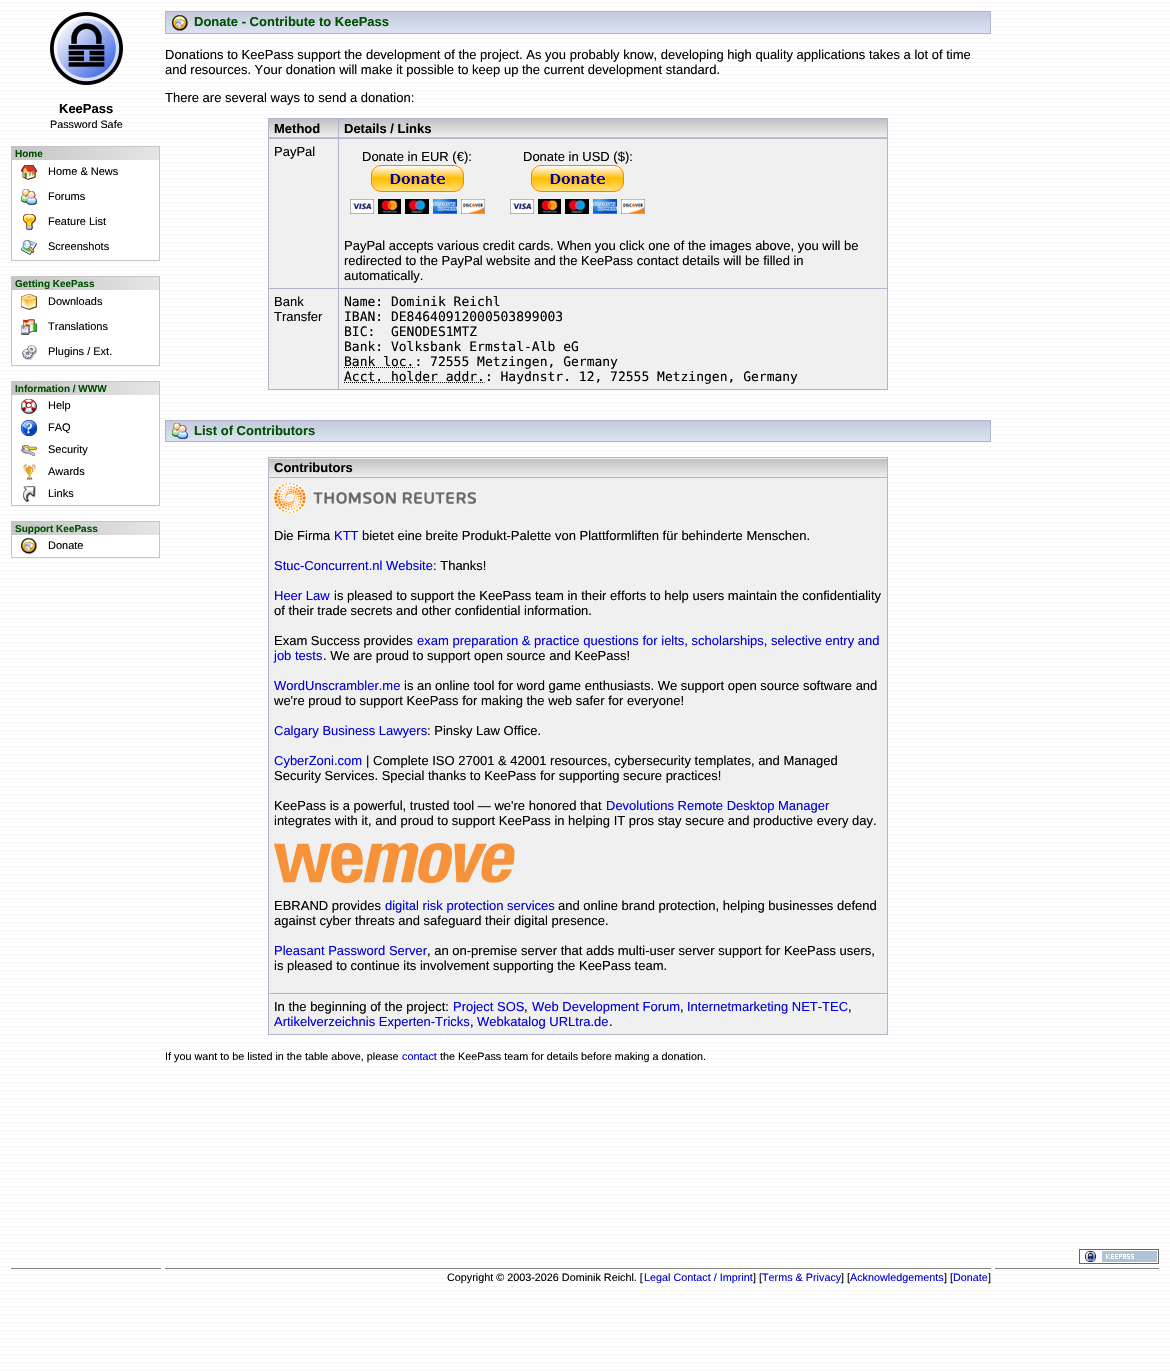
#include "include/core/SkBlurTypes.h"
#include "include/core/SkCanvas.h"
#include "include/core/SkData.h"
#include "include/core/SkFont.h"
#include "include/core/SkFontMgr.h"
#include "include/core/SkImage.h"
#include "include/core/SkMaskFilter.h"
#include "include/core/SkPaint.h"
#include "include/core/SkPathBuilder.h"
#include "include/core/SkTextBlob.h"
#include "include/effects/SkDashPathEffect.h"
#include "include/effects/SkGradientShader.h"
#include "include/utils/SkParsePath.h"

extern sk_sp<SkFontMgr> fontMgr;

static SkFont font(const char* family, int weight, float size, bool italic = false) {
    SkFontStyle style(weight, SkFontStyle::kNormal_Width,
        italic ? SkFontStyle::kItalic_Slant : SkFontStyle::kUpright_Slant);
    SkFont result(fontMgr->matchFamilyStyle(family, style), size);
    result.setSubpixel(true);
    return result;
}

static void drawLabel(SkCanvas* canvas, const char* s, float x, float y, const SkFont& font, SkColor color) {
    SkPaint ink(SkColor4f::FromColor(color));
    ink.setAntiAlias(true);
    canvas->drawString(s, x, y, font, ink);
}

static void fillRect(SkCanvas* canvas, float x, float y, float w, float h, SkColor color) {
    SkPaint ink(SkColor4f::FromColor(color));
    ink.setAntiAlias(true);
    canvas->drawRect(SkRect::MakeXYWH(x, y, w, h), ink);
}

static void drawPhoto(SkCanvas* canvas, const char* path, float x, float y, float w, float h) {
    auto image = SkImages::DeferredFromEncodedData(SkData::MakeFromFileName(path));
    canvas->drawImageRect(image, SkRect::MakeXYWH(x, y, w, h), SkSamplingOptions());
}

static SkPath parsePath(const char* data, bool evenOdd = false) {
    SkPath result = *SkParsePath::FromSVGString(data);
    if (evenOdd) result.setFillType(SkPathFillType::kEvenOdd);
    return result;
}

void draw(SkCanvas* canvas) {
    SkPaint paint;
    paint.setAntiAlias(true);
    canvas->clear(0xFFFFFFFF);
    drawPhoto(canvas, "assets/img1.png", 0, 2, 1170, 1369);
    drawPhoto(canvas, "assets/img2.png", 50, 12, 73, 73);
    SkFont font1 = font("Liberation Sans", 700, 13);
    drawLabel(canvas, "KeePass", 59, 113, font1, 0xFF000000);
    SkFont font2 = font("Liberation Sans", 400, 10.8f);
    drawLabel(canvas, "Password Safe", 50, 128, font2, 0xFF000000);
    fillRect(canvas, 12, 162, 147, 97, 0xFFFFFFFF);
    paint.setStroke(true);
    paint.setStrokeWidth(1);
    paint.setColor(0xFFC5C5C5);
    canvas->drawRect(SkRect::MakeXYWH(11.5f, 146.5f, 148, 114), paint);
    paint.setStroke(false);
    {
        const SkColor colors[] = {0xFFC5C5C5, 0xFFE5E5E5};
        const float stops[] = {0, 1};
        const SkPoint ends[] = {{12, 154}, {159, 154}};
        paint.setShader(SkGradientShader::MakeLinear(ends, colors, stops, 2, SkTileMode::kClamp));
        paint.setAlpha(255);
    }
    canvas->drawRect(SkRect::MakeXYWH(12, 147, 147, 13), paint);
    SkFont font3 = font("Liberation Sans", 700, 10);
    drawLabel(canvas, "Home", 15, 157, font3, 0xFF005101);
    drawPhoto(canvas, "assets/img3.png", 21, 165, 16, 15);
    SkFont font4 = font("Liberation Sans", 400, 11);
    drawLabel(canvas, "Home & News", 48, 175, font4, 0xFF000000);
    drawPhoto(canvas, "assets/img4.png", 21, 189, 16, 16);
    drawLabel(canvas, "Forums", 48, 200, font4, 0xFF000000);
    drawPhoto(canvas, "assets/img5.png", 23, 214, 13, 16);
    drawLabel(canvas, "Feature List", 48, 225, font4, 0xFF000000);
    drawPhoto(canvas, "assets/img6.png", 21, 240, 16, 15);
    drawLabel(canvas, "Screenshots", 48, 250, font4, 0xFF000000);
    fillRect(canvas, 12, 290, 147, 73, 0xFFFFFFFF);
    paint.setStroke(true);
    paint.setShader(nullptr);
    paint.setColor(0xFFC5C5C5);
    canvas->drawRect(SkRect::MakeXYWH(11.5f, 276.5f, 148, 89), paint);
    paint.setStroke(false);
    {
        const SkColor colors[] = {0xFFC5C5C5, 0xFFE5E5E5};
        const float stops[] = {0, 1};
        const SkPoint ends[] = {{12, 284}, {159, 284}};
        paint.setShader(SkGradientShader::MakeLinear(ends, colors, stops, 2, SkTileMode::kClamp));
        paint.setAlpha(255);
    }
    canvas->drawRect(SkRect::MakeXYWH(12, 277, 147, 13), paint);
    drawLabel(canvas, "Getting KeePass", 15, 287, font3, 0xFF005101);
    drawPhoto(canvas, "assets/img7.png", 21, 294, 16, 16);
    drawLabel(canvas, "Downloads", 48, 305, font4, 0xFF000000);
    drawPhoto(canvas, "assets/img8.png", 21, 319, 16, 16);
    drawLabel(canvas, "Translations", 48, 330, font4, 0xFF000000);
    drawPhoto(canvas, "assets/img9.png", 22, 345, 15, 15);
    drawLabel(canvas, "Plugins / Ext.", 48, 355, font4, 0xFF000000);
    fillRect(canvas, 12, 398, 147, 105, 0xFFFFFFFF);
    paint.setStroke(true);
    paint.setShader(nullptr);
    paint.setColor(0xFFC5C5C5);
    canvas->drawRect(SkRect::MakeXYWH(11.5f, 381.5f, 148, 124), paint);
    paint.setStroke(false);
    {
        const SkColor colors[] = {0xFFC5C5C5, 0xFFE5E5E5};
        const float stops[] = {0, 1};
        const SkPoint ends[] = {{12, 389}, {159, 389}};
        paint.setShader(SkGradientShader::MakeLinear(ends, colors, stops, 2, SkTileMode::kClamp));
        paint.setAlpha(255);
    }
    canvas->drawRect(SkRect::MakeXYWH(12, 382, 147, 13), paint);
    drawLabel(canvas, "Information / WWW", 15, 392, font3, 0xFF005101);
    drawPhoto(canvas, "assets/img10.png", 21, 399, 16, 15);
    drawLabel(canvas, "Help", 48, 409, font4, 0xFF000000);
    drawPhoto(canvas, "assets/img11.png", 21, 420, 16, 16);
    drawLabel(canvas, "FAQ", 48, 431, font4, 0xFF000000);
    drawPhoto(canvas, "assets/img12.png", 21, 445, 16, 11);
    drawLabel(canvas, "Security", 48, 453, font4, 0xFF000000);
    drawPhoto(canvas, "assets/img13.png", 23, 464, 13, 16);
    drawLabel(canvas, "Awards", 48, 475, font4, 0xFF000000);
    drawPhoto(canvas, "assets/img14.png", 23, 486, 13, 16);
    drawLabel(canvas, "Links", 48, 497, font4, 0xFF000000);
    fillRect(canvas, 12, 538, 147, 17, 0xFFFFFFFF);
    paint.setStroke(true);
    paint.setShader(nullptr);
    paint.setColor(0xFFC5C5C5);
    canvas->drawRect(SkRect::MakeXYWH(11.5f, 521.5f, 148, 36), paint);
    paint.setStroke(false);
    {
        const SkColor colors[] = {0xFFC5C5C5, 0xFFE5E5E5};
        const float stops[] = {0, 1};
        const SkPoint ends[] = {{12, 529}, {159, 529}};
        paint.setShader(SkGradientShader::MakeLinear(ends, colors, stops, 2, SkTileMode::kClamp));
        paint.setAlpha(255);
    }
    canvas->drawRect(SkRect::MakeXYWH(12, 522, 147, 13), paint);
    drawLabel(canvas, "Support KeePass", 15, 532, font3, 0xFF005101);
    drawPhoto(canvas, "assets/img15.png", 21, 538, 16, 16);
    drawLabel(canvas, "Donate", 48, 549, font4, 0xFF000000);
    {
        const SkColor colors[] = {0xFFC5C9DB, 0xFFDBE3F2};
        const float stops[] = {0, 1};
        const SkPoint ends[] = {{578, 12}, {578, 33}};
        paint.setShader(SkGradientShader::MakeLinear(ends, colors, stops, 2, SkTileMode::kClamp));
        paint.setAlpha(255);
    }
    canvas->drawRect(SkRect::MakeXYWH(166, 12, 824, 21), paint);
    paint.setStroke(true);
    paint.setShader(nullptr);
    paint.setColor(0xFFAFB5CF);
    canvas->drawRect(SkRect::MakeXYWH(165.5f, 11.5f, 825, 22), paint);
    drawPhoto(canvas, "assets/img16.png", 172, 15, 16, 16);
    drawLabel(canvas, "Donate - Contribute to KeePass", 194, 26, font1, 0xFF005101);
    SkFont font5 = font("Liberation Sans", 400, 13);
    drawLabel(canvas, "Donations to KeePass support the development of the project. As you probably know, developing high quality applications takes a lot of time", 165, 59, font5, 0xFF000000);
    drawLabel(canvas, "and resources. Your donation will make it possible to keep up the current development standard.", 165, 74, font5, 0xFF000000);
    drawLabel(canvas, "There are several ways to send a donation:", 165, 102, font5, 0xFF000000);
    fillRect(canvas, 268, 118, 620, 1, 0xFFAFB5CF);
    fillRect(canvas, 887, 118, 1, 272, 0xFFAFB5CF);
    fillRect(canvas, 268, 389, 620, 1, 0xFFAFB5CF);
    fillRect(canvas, 268, 118, 1, 272, 0xFFAFB5CF);
    paint.setStroke(false);
    {
        const SkColor colors[] = {0xFFC1C1C1, 0xFFEEEEEE};
        const float stops[] = {0, 1};
        const SkPoint ends[] = {{304, 119}, {304, 137}};
        paint.setShader(SkGradientShader::MakeLinear(ends, colors, stops, 2, SkTileMode::kClamp));
        paint.setAlpha(255);
    }
    canvas->drawRect(SkRect::MakeXYWH(269, 119, 69, 18), paint);
    {
        const SkColor colors[] = {0xFFC1C1C1, 0xFFEEEEEE};
        const float stops[] = {0, 1};
        const SkPoint ends[] = {{304, 137}, {304, 155}};
        paint.setShader(SkGradientShader::MakeLinear(ends, colors, stops, 2, SkTileMode::kClamp));
        paint.setAlpha(255);
    }
    canvas->drawRect(SkRect::MakeXYWH(269, 137, 69, 1), paint);
    drawLabel(canvas, "Method", 274, 133, font1, 0xFF000000);
    {
        const SkColor colors[] = {0xFFC1C1C1, 0xFFEEEEEE};
        const float stops[] = {0, 1};
        const SkPoint ends[] = {{613, 119}, {613, 137}};
        paint.setShader(SkGradientShader::MakeLinear(ends, colors, stops, 2, SkTileMode::kClamp));
        paint.setAlpha(255);
    }
    canvas->drawRect(SkRect::MakeXYWH(339, 119, 548, 18), paint);
    {
        const SkColor colors[] = {0xFFC1C1C1, 0xFFEEEEEE};
        const float stops[] = {0, 1};
        const SkPoint ends[] = {{613, 137}, {613, 155}};
        paint.setShader(SkGradientShader::MakeLinear(ends, colors, stops, 2, SkTileMode::kClamp));
        paint.setAlpha(255);
    }
    canvas->drawRect(SkRect::MakeXYWH(338, 137, 549, 1), paint);
    fillRect(canvas, 338, 138, 550, 1, 0xFFAFB5CF);
    fillRect(canvas, 338, 288, 550, 1, 0xFFAFB5CF);
    fillRect(canvas, 338, 288, 1, 102, 0xFFAFB5CF);
    fillRect(canvas, 268, 288, 71, 1, 0xFFAFB5CF);
    fillRect(canvas, 338, 138, 1, 151, 0xFFAFB5CF);
    fillRect(canvas, 268, 138, 71, 1, 0xFFAFB5CF);
    fillRect(canvas, 338, 118, 1, 21, 0xFFAFB5CF);
    drawLabel(canvas, "Details / Links", 344, 133, font1, 0xFF000000);
    fillRect(canvas, 269, 139, 69, 149, 0xFFF0F0F0);
    drawLabel(canvas, "PayPal", 274, 156, font5, 0xFF000000);
    fillRect(canvas, 339, 139, 548, 149, 0xFFF0F0F0);
    drawLabel(canvas, "Donate in EUR (€):", 362, 161, font5, 0xFF000000);
    drawPhoto(canvas, "assets/img17.png", 350, 165, 135, 49);
    drawLabel(canvas, "Donate in USD ($):", 523, 161, font5, 0xFF000000);
    drawPhoto(canvas, "assets/img17.png", 510, 165, 135, 49);
    drawLabel(canvas, "PayPal accepts various credit cards. When you click one of the images above, you will be", 344, 250, font5, 0xFF000000);
    drawLabel(canvas, "redirected to the PayPal website and the KeePass contact details will be filled in", 344, 265, font5, 0xFF000000);
    drawLabel(canvas, "automatically.", 344, 280, font5, 0xFF000000);
    fillRect(canvas, 269, 289, 69, 100, 0xFFF0F0F0);
    drawLabel(canvas, "Bank", 274, 306, font5, 0xFF000000);
    drawLabel(canvas, "Transfer", 274, 321, font5, 0xFF000000);
    fillRect(canvas, 339, 289, 548, 100, 0xFFF0F0F0);
    SkFont font6 = font("DejaVu Sans Mono", 400, 13);
    drawLabel(canvas, "Name: Dominik Reichl", 344, 306, font6, 0xFF000000);
    drawLabel(canvas, "IBAN: DE84640912000503899003", 344, 321, font6, 0xFF000000);
    drawLabel(canvas, "BIC:  GENODES1MTZ", 344, 336, font6, 0xFF000000);
    drawLabel(canvas, "Bank: Volksbank Ermstal-Alb eG", 344, 351, font6, 0xFF000000);
    paint.setStroke(true);
    paint.setShader(nullptr);
    paint.setColor(0xFF000000);
    paint.setPathEffect(SkDashPathEffect::Make({{1, 1}}, 0));
    canvas->drawPath(parsePath("M344 367.5H414.5"), paint);
    paint.setPathEffect(nullptr);
    drawLabel(canvas, "Bank loc.: 72555 Metzingen, Germany", 344, 366, font6, 0xFF000000);
    paint.setPathEffect(SkDashPathEffect::Make({{1, 1}}, 0));
    canvas->drawPath(parsePath("M344 382.5H484.5"), paint);
    paint.setPathEffect(nullptr);
    drawLabel(canvas, "Acct. holder addr.: Haydnstr. 12, 72555 Metzingen, Germany", 344, 381, font6, 0xFF000000);
    paint.setStroke(false);
    {
        const SkColor colors[] = {0xFFC5C9DB, 0xFFDBE3F2};
        const float stops[] = {0, 1};
        const SkPoint ends[] = {{578, 421}, {578, 441}};
        paint.setShader(SkGradientShader::MakeLinear(ends, colors, stops, 2, SkTileMode::kClamp));
        paint.setAlpha(255);
    }
    canvas->drawRect(SkRect::MakeXYWH(166, 421, 824, 20), paint);
    paint.setStroke(true);
    paint.setShader(nullptr);
    paint.setColor(0xFFAFB5CF);
    canvas->drawRect(SkRect::MakeXYWH(165.5f, 420.5f, 825, 21), paint);
    drawPhoto(canvas, "assets/img18.png", 172, 423, 16, 16);
    drawLabel(canvas, "List of Contributors", 194, 435, font1, 0xFF005101);
    fillRect(canvas, 269, 458, 618, 1, 0xFFEEEEEE);
    fillRect(canvas, 268, 457, 620, 1, 0xFFAFB5CF);
    fillRect(canvas, 887, 457, 1, 578, 0xFFAFB5CF);
    fillRect(canvas, 268, 1034, 620, 1, 0xFFAFB5CF);
    fillRect(canvas, 268, 457, 1, 578, 0xFFAFB5CF);
    paint.setStroke(false);
    {
        const SkColor colors[] = {0xFFC1C1C1, 0xFFEEEEEE};
        const float stops[] = {0, 1};
        const SkPoint ends[] = {{578, 459}, {578, 477}};
        paint.setShader(SkGradientShader::MakeLinear(ends, colors, stops, 2, SkTileMode::kClamp));
        paint.setAlpha(255);
    }
    canvas->drawRect(SkRect::MakeXYWH(269, 459, 618, 18), paint);
    drawLabel(canvas, "Contributors", 274, 472, font1, 0xFF000000);
    fillRect(canvas, 269, 478, 618, 515, 0xFFF0F0F0);
    fillRect(canvas, 268, 477, 620, 1, 0xFFAFB5CF);
    drawPhoto(canvas, "assets/img19.png", 274, 483, 203, 30);
    drawLabel(canvas, "Die Firma", 274, 540, font5, 0xFF000000);
    drawLabel(canvas, "KTT", 334, 540, font5, 0xFF0000DD);
    drawLabel(canvas, "bietet eine breite Produkt-Palette von Plattformliften für behinderte Menschen.", 362, 540, font5, 0xFF000000);
    drawLabel(canvas, "Stuc-Concurrent.nl Website", 274, 570, font5, 0xFF0000DD);
    drawLabel(canvas, ": Thanks!", 433, 570, font5, 0xFF000000);
    drawLabel(canvas, "Heer Law", 274, 600, font5, 0xFF0000DD);
    drawLabel(canvas, "is pleased to support the KeePass team in their efforts to help users maintain the confidentiality", 334, 600, font5, 0xFF000000);
    drawLabel(canvas, "of their trade secrets and other confidential information.", 274, 615, font5, 0xFF000000);
    drawLabel(canvas, "Exam Success provides", 274, 645, font5, 0xFF000000);
    drawLabel(canvas, "exam preparation & practice questions for ielts, scholarships, selective entry and", 417, 645, font5, 0xFF0000DD);
    drawLabel(canvas, "job tests", 274, 660, font5, 0xFF0000DD);
    drawLabel(canvas, ". We are proud to support open source and KeePass!", 323, 660, font5, 0xFF000000);
    drawLabel(canvas, "WordUnscrambler.me", 274, 690, font5, 0xFF0000DD);
    drawLabel(canvas, "is an online tool for word game enthusiasts. We support open source software and", 404, 690, font5, 0xFF000000);
    drawLabel(canvas, "we're proud to support KeePass for making the web safer for everyone!", 274, 705, font5, 0xFF000000);
    drawLabel(canvas, "Calgary Business Lawyers", 274, 735, font5, 0xFF0000DD);
    drawLabel(canvas, ": Pinsky Law Office.", 427, 735, font5, 0xFF000000);
    drawLabel(canvas, "CyberZoni.com", 274, 765, font5, 0xFF0000DD);
    drawLabel(canvas, "| Complete ISO 27001 & 42001 resources, cybersecurity templates, and Managed", 366, 765, font5, 0xFF000000);
    drawLabel(canvas, "Security Services. Special thanks to KeePass for supporting secure practices!", 274, 780, font5, 0xFF000000);
    drawLabel(canvas, "KeePass is a powerful, trusted tool — we're honored that", 274, 810, font5, 0xFF000000);
    drawLabel(canvas, "Devolutions Remote Desktop Manager", 606, 810, font5, 0xFF0000DD);
    drawLabel(canvas, "integrates with it, and proud to support KeePass in helping IT pros stay secure and productive every day.", 274, 825, font5, 0xFF000000);
    drawPhoto(canvas, "assets/img20.png", 274, 843, 241, 40);
    drawLabel(canvas, "EBRAND provides", 274, 910, font5, 0xFF000000);
    drawLabel(canvas, "digital risk protection services", 385, 910, font5, 0xFF0000DD);
    drawLabel(canvas, "and online brand protection, helping businesses defend", 558, 910, font5, 0xFF000000);
    drawLabel(canvas, "against cyber threats and safeguard their digital presence.", 274, 925, font5, 0xFF000000);
    drawLabel(canvas, "Pleasant Password Server", 274, 955, font5, 0xFF0000DD);
    drawLabel(canvas, ", an on-premise server that adds multi-user server support for KeePass users,", 427, 955, font5, 0xFF000000);
    drawLabel(canvas, "is pleased to continue its involvement supporting the KeePass team.", 274, 970, font5, 0xFF000000);
    fillRect(canvas, 269, 994, 618, 40, 0xFFF0F0F0);
    fillRect(canvas, 268, 993, 620, 1, 0xFFAFB5CF);
    drawLabel(canvas, "In the beginning of the project:", 274, 1011, font5, 0xFF000000);
    drawLabel(canvas, "Project SOS", 453, 1011, font5, 0xFF0000DD);
    drawLabel(canvas, ",", 524, 1011, font5, 0xFF000000);
    drawLabel(canvas, "Web Development Forum", 532, 1011, font5, 0xFF0000DD);
    drawLabel(canvas, ",", 680, 1011, font5, 0xFF000000);
    drawLabel(canvas, "Internetmarketing NET-TEC", 687, 1011, font5, 0xFF0000DD);
    drawLabel(canvas, ",", 848, 1011, font5, 0xFF000000);
    drawLabel(canvas, "Artikelverzeichnis Experten-Tricks", 274, 1026, font5, 0xFF0000DD);
    drawLabel(canvas, ",", 470, 1026, font5, 0xFF000000);
    drawLabel(canvas, "Webkatalog URLtra.de", 477, 1026, font5, 0xFF0000DD);
    drawLabel(canvas, ".", 609, 1026, font5, 0xFF000000);
    drawLabel(canvas, "If you want to be listed in the table above, please", 165, 1060, font2, 0xFF000000);
    drawLabel(canvas, "contact", 402, 1060, font2, 0xFF0000DD);
    drawLabel(canvas, "the KeePass team for details before making a donation.", 440, 1060, font2, 0xFF000000);
    drawPhoto(canvas, "assets/img21.png", 1079, 1249, 80, 15);
    fillRect(canvas, 11, 1268, 150, 1, 0xFF7F7F7F);
    fillRect(canvas, 995, 1268, 164, 1, 0xFF7F7F7F);
    fillRect(canvas, 165, 1268, 826, 1, 0xFF7F7F7F);
    drawLabel(canvas, "Copyright © 2003-2026 Dominik Reichl. [", 447, 1281, font2, 0xFF000000);
    drawLabel(canvas, "Legal Contact / Imprint", 644, 1281, font2, 0xFF0000DD);
    drawLabel(canvas, "] [", 753, 1281, font2, 0xFF000000);
    drawLabel(canvas, "Terms & Privacy", 762, 1281, font2, 0xFF0000DD);
    drawLabel(canvas, "] [", 841, 1281, font2, 0xFF000000);
    drawLabel(canvas, "Acknowledgements", 850, 1281, font2, 0xFF0000DD);
    drawLabel(canvas, "] [", 944, 1281, font2, 0xFF000000);
    drawLabel(canvas, "Donate", 953, 1281, font2, 0xFF0000DD);
    drawLabel(canvas, "]", 988, 1281, font2, 0xFF000000);
}
